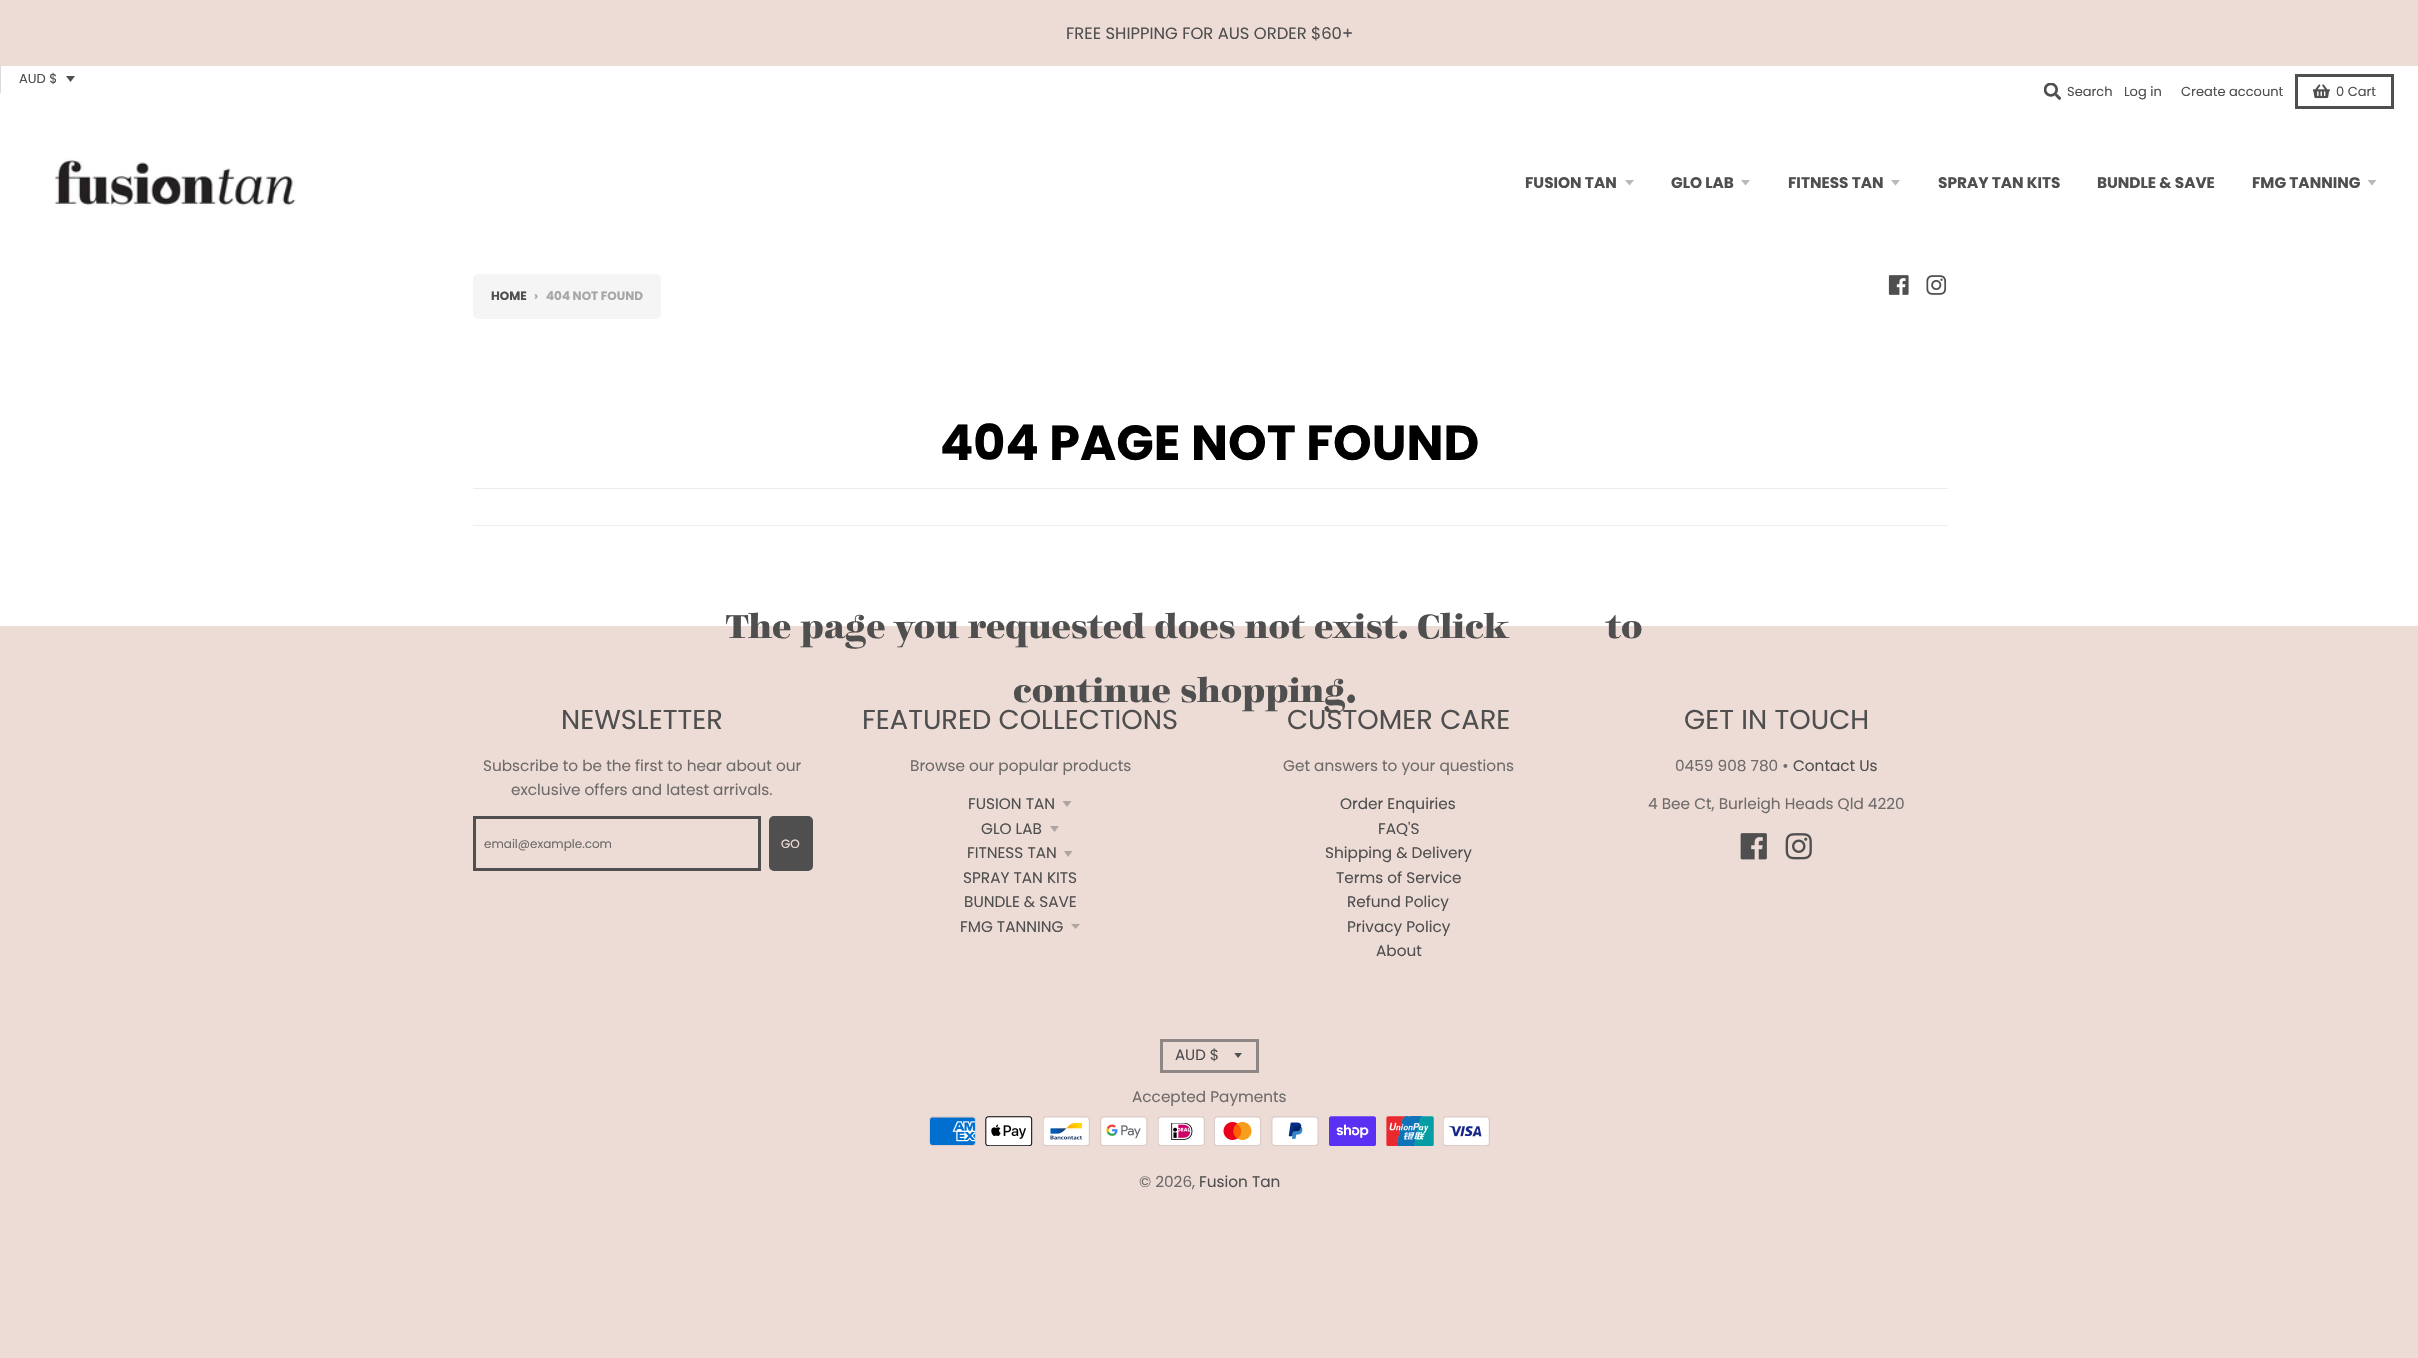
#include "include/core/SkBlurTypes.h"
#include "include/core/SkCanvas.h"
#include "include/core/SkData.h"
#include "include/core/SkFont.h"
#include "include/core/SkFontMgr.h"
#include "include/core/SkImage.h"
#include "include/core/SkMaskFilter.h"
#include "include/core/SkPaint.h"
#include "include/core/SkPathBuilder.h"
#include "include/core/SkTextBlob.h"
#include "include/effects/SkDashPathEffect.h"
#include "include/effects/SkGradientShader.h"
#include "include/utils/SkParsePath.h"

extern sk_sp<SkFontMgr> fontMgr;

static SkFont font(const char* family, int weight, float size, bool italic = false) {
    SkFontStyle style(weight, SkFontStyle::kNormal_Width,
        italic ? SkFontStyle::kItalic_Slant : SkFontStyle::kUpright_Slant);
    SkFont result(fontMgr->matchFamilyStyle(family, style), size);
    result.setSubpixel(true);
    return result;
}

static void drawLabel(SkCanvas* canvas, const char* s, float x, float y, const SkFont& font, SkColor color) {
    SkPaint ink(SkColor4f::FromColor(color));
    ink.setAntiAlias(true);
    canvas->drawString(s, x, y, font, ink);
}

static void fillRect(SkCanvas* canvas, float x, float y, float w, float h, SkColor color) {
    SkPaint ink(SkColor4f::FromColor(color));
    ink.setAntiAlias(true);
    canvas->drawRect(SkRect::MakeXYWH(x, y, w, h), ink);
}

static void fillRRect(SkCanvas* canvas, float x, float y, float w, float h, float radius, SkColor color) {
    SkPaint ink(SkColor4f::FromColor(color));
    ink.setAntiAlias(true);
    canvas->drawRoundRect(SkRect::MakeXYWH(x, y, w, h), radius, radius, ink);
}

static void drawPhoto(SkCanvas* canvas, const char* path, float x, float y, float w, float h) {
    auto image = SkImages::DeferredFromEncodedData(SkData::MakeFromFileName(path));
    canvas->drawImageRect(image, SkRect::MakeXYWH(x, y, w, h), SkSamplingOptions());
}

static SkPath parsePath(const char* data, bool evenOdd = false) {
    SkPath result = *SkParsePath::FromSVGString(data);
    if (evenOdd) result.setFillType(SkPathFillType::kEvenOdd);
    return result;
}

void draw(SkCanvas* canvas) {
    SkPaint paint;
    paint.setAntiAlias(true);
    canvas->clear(0xFFEDDCD6);
    fillRect(canvas, 0, 66, 2418, 560, 0xFFFFFFFF);
    SkFont font1 = font("Poppins", 400, 16.4f);
    drawLabel(canvas, "FREE SHIPPING FOR AUS ORDER $60+", 1066, 39, font1, 0xFF4F4F4F);
    fillRect(canvas, 0, 66, 1, 27, 0xFFDBDBDB);
    paint.setColor(0xFF4F4F4F);
    canvas->drawPath(parsePath("M66 76L70.5 82L75 76Z"), paint);
    SkFont font2 = font("Poppins", 400, 13);
    drawLabel(canvas, "AUD $", 19, 83, font2, 0xFF4F4F4F);
    drawPhoto(canvas, "assets/img1.png", 2044, 83, 17, 17);
    drawLabel(canvas, "Search", 2067, 96, font2, 0xFF4F4F4F);
    drawLabel(canvas, "Log in", 2124, 96, font2, 0xFF4F4F4F);
    drawLabel(canvas, "Create account", 2181, 96, font2, 0xFF4F4F4F);
    paint.setStroke(true);
    paint.setStrokeWidth(3);
    canvas->drawRect(SkRect::MakeXYWH(2296.5f, 75.5f, 96, 32), paint);
    drawPhoto(canvas, "assets/img2.png", 2313, 84, 17, 15);
    drawLabel(canvas, "0 Cart", 2336, 96, font2, 0xFF4F4F4F);
    drawPhoto(canvas, "assets/img3.png", 55, 158, 241, 48);
    SkFont font3 = font("Poppins", 700, 15.3f);
    drawLabel(canvas, "FUSION TAN", 1525, 188, font3, 0xFF4F4F4F);
    paint.setStroke(false);
    paint.setColor(0xFFB9B9B9);
    canvas->drawPath(parsePath("M1625 180L1629.5 185.5L1634 180Z"), paint);
    drawLabel(canvas, "GLO LAB", 1671, 188, font3, 0xFF4F4F4F);
    canvas->drawPath(parsePath("M1741 180L1745.5 185.5L1750 180Z"), paint);
    drawLabel(canvas, "FITNESS TAN", 1788, 188, font3, 0xFF4F4F4F);
    canvas->drawPath(parsePath("M1891 180L1895.5 185.5L1900 180Z"), paint);
    drawLabel(canvas, "SPRAY TAN KITS", 1938, 188, font3, 0xFF4F4F4F);
    drawLabel(canvas, "BUNDLE & SAVE", 2097, 188, font3, 0xFF4F4F4F);
    drawLabel(canvas, "FMG TANNING", 2252, 188, font3, 0xFF4F4F4F);
    canvas->drawPath(parsePath("M2367.5 180L2372 185.5L2376.5 180Z"), paint);
    drawPhoto(canvas, "assets/img4.png", 1888, 275, 21, 20);
    drawPhoto(canvas, "assets/img5.png", 1926, 275, 21, 20);
    fillRRect(canvas, 473, 274, 188, 45, 5, 0xFFF5F5F5);
    SkFont font4 = font("Poppins", 700, 12);
    drawLabel(canvas, "HOME", 491, 300, font4, 0xFF4F4F4F);
    drawLabel(canvas, "›", 534, 300, font4, 0xFFA7A7A7);
    drawLabel(canvas, "404 NOT FOUND", 546, 300, font4, 0xFFA7A7A7);
    fillRect(canvas, 473, 525, 1475, 1, 0xFFEEEEEE);
    fillRect(canvas, 473, 488, 1475, 1, 0xFFEDEDED);
    SkFont font5 = font("Poppins", 700, 49.25f);
    drawLabel(canvas, "404 PAGE NOT FOUND", 940, 460, font5, 0xFF000000);
    SkFont font6 = font("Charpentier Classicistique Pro", 700, 40);
    drawLabel(canvas, "The page you requested does not exist. Click", 727, 638, font6, 0xFF4F4F4F);
    drawLabel(canvas, "to", 1607, 638, font6, 0xFF4F4F4F);
    drawLabel(canvas, "continue shopping.", 1014, 702, font6, 0xFF4F4F4F);
    SkFont font7 = font("Poppins", 400, 27.3f);
    drawLabel(canvas, "NEWSLETTER", 561, 729, font7, 0xFF4F4F4F);
    SkFont font8 = font("Poppins", 400, 15.3f);
    drawLabel(canvas, "Subscribe to be the first to hear about our", 483, 771, font8, 0xFF6E6B6A);
    drawLabel(canvas, "exclusive offers and latest arrivals.", 511, 795, font8, 0xFF6E6B6A);
    paint.setStroke(true);
    paint.setColor(0xFF4F4F4F);
    canvas->drawRect(SkRect::MakeXYWH(474.5f, 817.5f, 285, 52), paint);
    SkFont font9 = font("Poppins", 400, 12);
    drawLabel(canvas, "email@example.com", 484, 848, font9, 0xFF6E6B6A);
    fillRRect(canvas, 769, 816, 44, 55, 5, 0xFF4F4F4F);
    drawLabel(canvas, "GO", 781, 848, font9, 0xFFEDDCD6);
    drawLabel(canvas, "FEATURED COLLECTIONS", 862, 729, font7, 0xFF4F4F4F);
    drawLabel(canvas, "Browse our popular products", 910, 771, font8, 0xFF6E6B6A);
    drawLabel(canvas, "FUSION TAN", 968, 809, font8, 0xFF4F4F4F);
    paint.setStroke(false);
    paint.setColor(0xFFAEA4A0);
    canvas->drawPath(parsePath("M1062.5 801L1067 807L1071.5 801Z"), paint);
    drawLabel(canvas, "GLO LAB", 981, 834, font8, 0xFF4F4F4F);
    canvas->drawPath(parsePath("M1050 826L1054.5 832L1059 826Z"), paint);
    drawLabel(canvas, "FITNESS TAN", 967, 858, font8, 0xFF4F4F4F);
    canvas->drawPath(parsePath("M1064 851L1068 857L1072.5 851Z"), paint);
    drawLabel(canvas, "SPRAY TAN KITS", 963, 883, font8, 0xFF4F4F4F);
    drawLabel(canvas, "BUNDLE & SAVE", 964, 907, font8, 0xFF4F4F4F);
    drawLabel(canvas, "FMG TANNING", 960, 932, font8, 0xFF4F4F4F);
    canvas->drawPath(parsePath("M1071 924L1075.5 929L1080 924Z"), paint);
    drawLabel(canvas, "CUSTOMER CARE", 1287, 729, font7, 0xFF4F4F4F);
    drawLabel(canvas, "Get answers to your questions", 1283, 771, font8, 0xFF6E6B6A);
    drawLabel(canvas, "Order Enquiries", 1340, 809, font8, 0xFF4F4F4F);
    drawLabel(canvas, "FAQ'S", 1378, 834, font8, 0xFF4F4F4F);
    drawLabel(canvas, "Shipping & Delivery", 1325, 858, font8, 0xFF4F4F4F);
    drawLabel(canvas, "Terms of Service", 1336, 883, font8, 0xFF4F4F4F);
    drawLabel(canvas, "Refund Policy", 1347, 907, font8, 0xFF4F4F4F);
    drawLabel(canvas, "Privacy Policy", 1347, 932, font8, 0xFF4F4F4F);
    drawLabel(canvas, "About", 1376, 956, font8, 0xFF4F4F4F);
    drawLabel(canvas, "GET IN TOUCH", 1684, 729, font7, 0xFF4F4F4F);
    drawLabel(canvas, "0459 908 780 •", 1675, 771, font8, 0xFF6E6B6A);
    drawLabel(canvas, "Contact Us", 1793, 771, font8, 0xFF4F4F4F);
    drawLabel(canvas, "4 Bee Ct, Burleigh Heads Qld 4220", 1648, 809, font8, 0xFF6E6B6A);
    drawPhoto(canvas, "assets/img6.png", 1740, 833, 27, 27);
    drawPhoto(canvas, "assets/img7.png", 1785, 833, 27, 27);
    canvas->save();
    canvas->clipRect(SkRect::MakeXYWH(1234, 1053, 10, 6));
    paint.setColor(0xFF4F4F4F);
    canvas->drawPath(parsePath("M1234 1052.5L1238 1058L1242.5 1052.5Z"), paint);
    canvas->restore();
    paint.setStroke(true);
    paint.setColor(0xFF8E8785);
    canvas->drawRect(SkRect::MakeXYWH(1161.5f, 1040.5f, 96, 31), paint);
    SkFont font10 = font("Poppins", 400, 15);
    drawLabel(canvas, "AUD $", 1175, 1060, font10, 0xFF4F4F4F);
    drawLabel(canvas, "Accepted Payments", 1132, 1102, font8, 0xFF6E6B6A);
    drawPhoto(canvas, "assets/img8.png", 929, 1116, 47, 30);
    drawPhoto(canvas, "assets/img9.png", 985, 1116, 48, 30);
    drawPhoto(canvas, "assets/img10.png", 1043, 1116, 47, 30);
    drawPhoto(canvas, "assets/img11.png", 1100, 1116, 48, 30);
    drawPhoto(canvas, "assets/img12.png", 1158, 1116, 47, 30);
    drawPhoto(canvas, "assets/img13.png", 1214, 1116, 47, 30);
    drawPhoto(canvas, "assets/img14.png", 1271, 1116, 48, 30);
    drawPhoto(canvas, "assets/img15.png", 1329, 1116, 47, 30);
    drawPhoto(canvas, "assets/img16.png", 1386, 1116, 48, 30);
    drawPhoto(canvas, "assets/img17.png", 1443, 1116, 47, 30);
    drawLabel(canvas, "© 2026,", 1139, 1187, font8, 0xFF6E6B6A);
    drawLabel(canvas, "Fusion Tan", 1199, 1187, font8, 0xFF4F4F4F);
}
